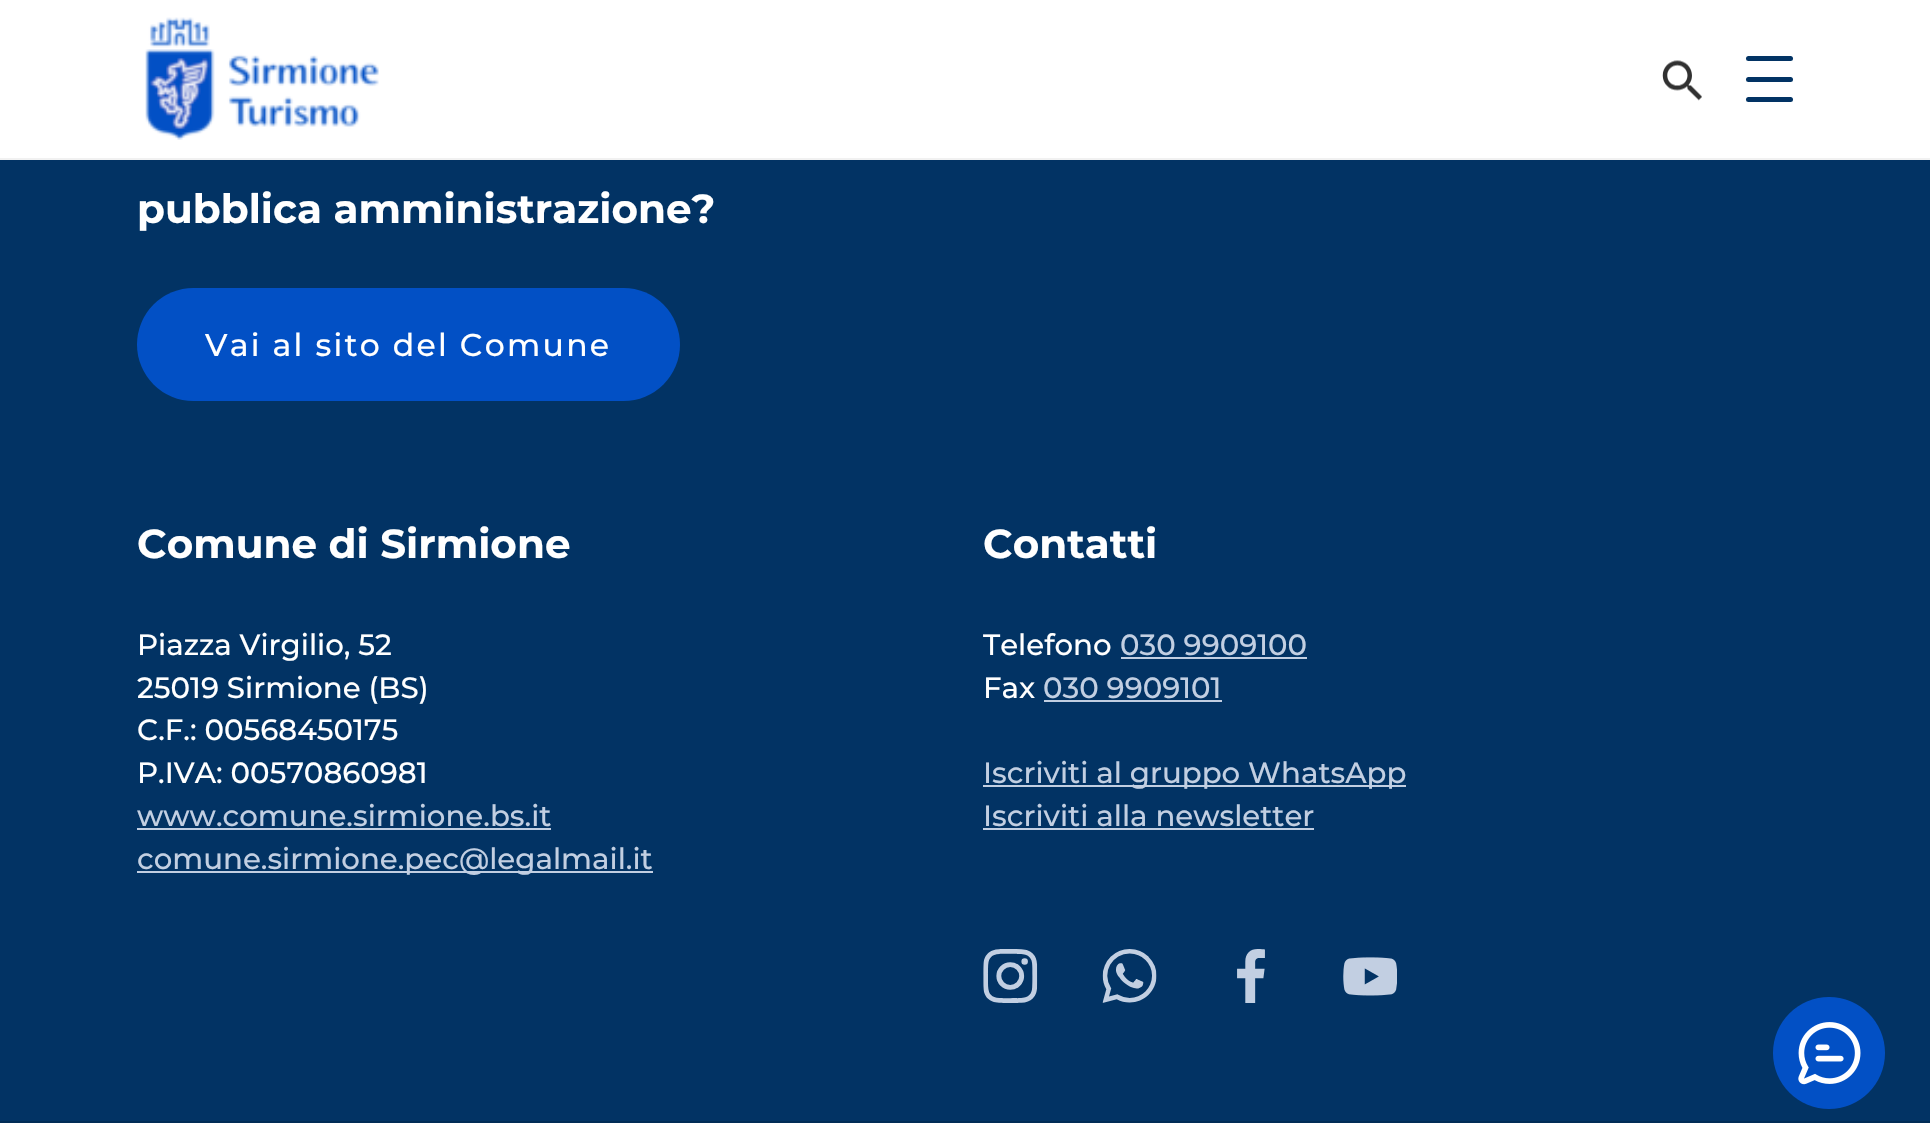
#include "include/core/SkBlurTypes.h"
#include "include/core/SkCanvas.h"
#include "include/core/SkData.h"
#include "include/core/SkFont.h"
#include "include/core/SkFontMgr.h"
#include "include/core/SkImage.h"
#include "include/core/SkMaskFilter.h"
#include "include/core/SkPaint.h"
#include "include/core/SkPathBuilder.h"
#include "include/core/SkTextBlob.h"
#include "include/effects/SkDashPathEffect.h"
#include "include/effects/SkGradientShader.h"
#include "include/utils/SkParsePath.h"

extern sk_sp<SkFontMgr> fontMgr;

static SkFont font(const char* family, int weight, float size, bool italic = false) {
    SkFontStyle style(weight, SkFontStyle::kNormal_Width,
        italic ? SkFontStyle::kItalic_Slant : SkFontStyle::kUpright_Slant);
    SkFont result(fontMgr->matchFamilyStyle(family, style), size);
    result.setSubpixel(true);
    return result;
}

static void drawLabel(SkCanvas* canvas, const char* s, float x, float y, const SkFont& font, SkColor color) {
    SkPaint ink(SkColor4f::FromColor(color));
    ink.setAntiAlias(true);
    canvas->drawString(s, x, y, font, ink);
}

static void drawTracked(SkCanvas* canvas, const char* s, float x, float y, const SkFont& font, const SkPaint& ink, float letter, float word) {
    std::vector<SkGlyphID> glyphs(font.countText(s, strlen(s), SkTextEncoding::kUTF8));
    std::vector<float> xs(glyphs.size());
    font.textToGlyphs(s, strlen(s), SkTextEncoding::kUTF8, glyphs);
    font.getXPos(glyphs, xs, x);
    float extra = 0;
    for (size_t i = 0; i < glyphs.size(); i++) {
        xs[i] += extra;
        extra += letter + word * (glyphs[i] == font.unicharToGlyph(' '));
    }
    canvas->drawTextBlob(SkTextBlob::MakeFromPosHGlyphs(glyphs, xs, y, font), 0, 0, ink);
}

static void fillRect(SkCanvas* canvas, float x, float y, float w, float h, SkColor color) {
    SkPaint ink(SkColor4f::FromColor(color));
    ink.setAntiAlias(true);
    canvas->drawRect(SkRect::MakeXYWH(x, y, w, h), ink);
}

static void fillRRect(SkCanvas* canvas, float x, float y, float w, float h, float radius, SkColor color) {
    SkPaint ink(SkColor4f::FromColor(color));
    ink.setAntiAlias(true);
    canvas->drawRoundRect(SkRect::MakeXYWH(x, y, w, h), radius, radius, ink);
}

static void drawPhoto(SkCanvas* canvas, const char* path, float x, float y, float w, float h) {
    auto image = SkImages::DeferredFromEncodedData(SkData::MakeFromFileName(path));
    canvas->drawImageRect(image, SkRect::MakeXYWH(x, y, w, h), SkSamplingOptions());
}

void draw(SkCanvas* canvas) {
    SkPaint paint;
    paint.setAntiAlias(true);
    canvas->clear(0xFF012D56);
    fillRect(canvas, 0, 0, 1930, 158, 0xFFFFFFFF);
    fillRect(canvas, 0, 158, 1930, 2, 0xFFF1F1F1);
    drawPhoto(canvas, "assets/img1.png", 145, 17, 234, 123);
    drawPhoto(canvas, "assets/img2.png", 1662, 60, 40, 41);
    fillRRect(canvas, 1746, 56, 47, 5, 2.5f, 0xFF023364);
    fillRRect(canvas, 1746, 77, 47, 5, 2.5f, 0xFF023364);
    fillRRect(canvas, 1746, 97, 47, 5, 2.5f, 0xFF023364);
    fillRect(canvas, 0, 160, 1930, 961, 0xFF023364);
    SkFont font1 = font("Montserrat", 700, 40.5f);
    drawLabel(canvas, "pubblica amministrazione?", 137, 223, font1, 0xFFFFFFFF);
    fillRRect(canvas, 137, 288, 543, 113, 56.5f, 0xFF0250C5);
    SkFont font2 = font("Montserrat", 500, 31.5f);
    paint.setColor(0xFFFFFFFF);
    drawTracked(canvas, "Vai al sito del Comune", 205, 356, font2, paint, 2.25f, 0);
    drawLabel(canvas, "Comune di Sirmione", 137, 558, font1, 0xFFFFFFFF);
    SkFont font3 = font("Montserrat", 500, 29.25f);
    drawLabel(canvas, "Piazza Virgilio, 52", 137, 655, font3, 0xFFFFFFFF);
    drawLabel(canvas, "25019 Sirmione (BS)", 137, 698, font3, 0xFFFFFFFF);
    drawLabel(canvas, "C.F.: 00568450175", 137, 740, font3, 0xFFFFFFFF);
    drawLabel(canvas, "P.IVA: 00570860981", 137, 783, font3, 0xFFFFFFFF);
    drawLabel(canvas, "www.comune.sirmione.bs.it", 137, 826, font3, 0xFFC2CFE2);
    fillRect(canvas, 137, 828, 414, 2, 0xFFC2CFE2);
    fillRect(canvas, 137, 871, 516, 2, 0xFFC2CFE2);
    drawLabel(canvas, "comune.sirmione.pec@legalmail.it", 137, 869, font3, 0xFFC2CFE2);
    drawLabel(canvas, "Contatti", 983, 558, font1, 0xFFFFFFFF);
    drawLabel(canvas, "Telefono", 983, 655, font3, 0xFFFFFFFF);
    drawLabel(canvas, "030 9909100", 1120, 655, font3, 0xFFC2CFE2);
    fillRect(canvas, 1121, 657, 186, 2, 0xFFC2CFE2);
    drawLabel(canvas, "Fax", 983, 698, font3, 0xFFFFFFFF);
    drawLabel(canvas, "030 9909101", 1043, 698, font3, 0xFFC2CFE2);
    fillRect(canvas, 1044, 700, 178, 2, 0xFFC2CFE2);
    fillRect(canvas, 983, 785, 423, 2, 0xFFC2CFE2);
    drawLabel(canvas, "Iscriviti al gruppo WhatsApp", 983, 783, font3, 0xFFC2CFE2);
    drawLabel(canvas, "Iscriviti alla newsletter", 983, 826, font3, 0xFFC2CFE2);
    fillRect(canvas, 983, 828, 331, 2, 0xFFC2CFE2);
    drawPhoto(canvas, "assets/img3.png", 983, 949, 55, 54);
    drawPhoto(canvas, "assets/img4.png", 1102, 949, 55, 54);
    drawPhoto(canvas, "assets/img5.png", 1237, 949, 28, 54);
    drawPhoto(canvas, "assets/img6.png", 1343, 957, 54, 39);
    drawPhoto(canvas, "assets/img7.png", 1773, 997, 112, 112);
}
